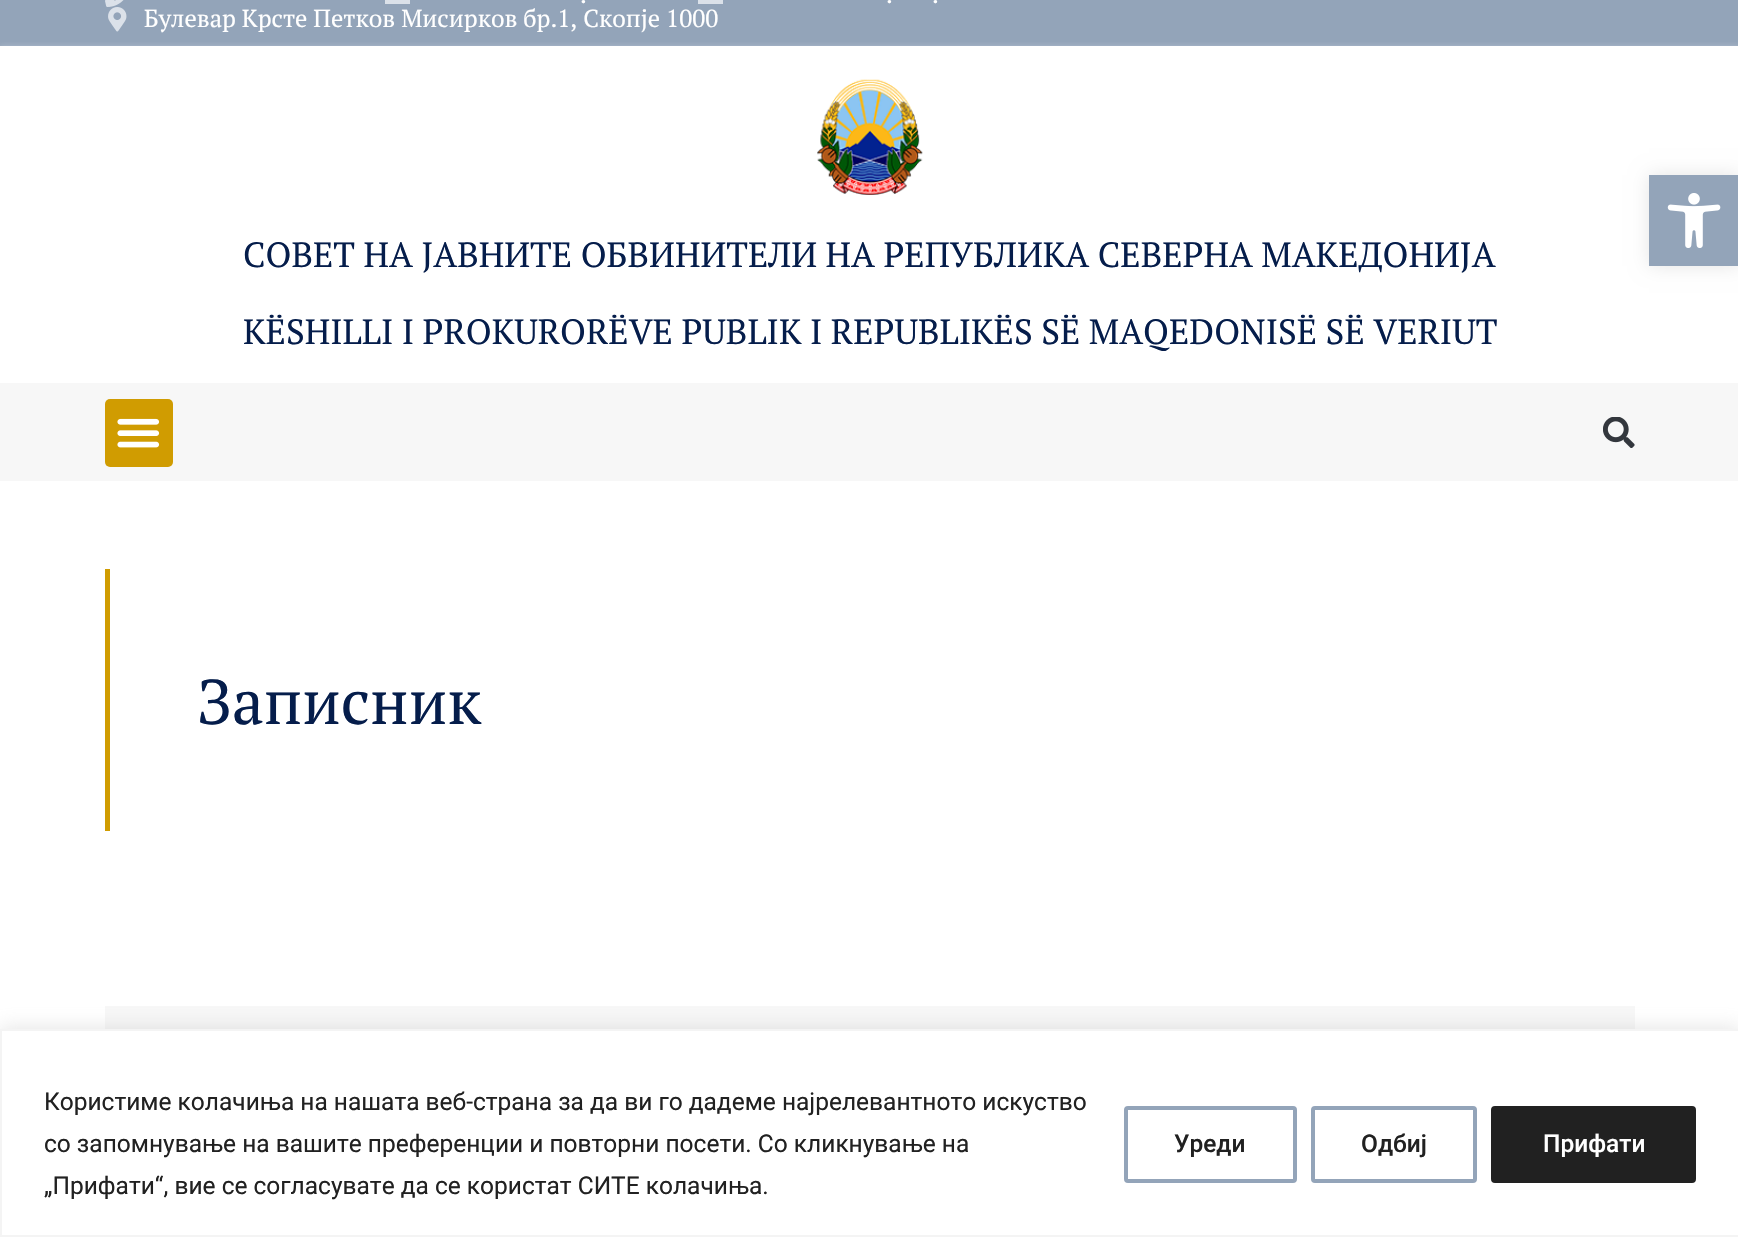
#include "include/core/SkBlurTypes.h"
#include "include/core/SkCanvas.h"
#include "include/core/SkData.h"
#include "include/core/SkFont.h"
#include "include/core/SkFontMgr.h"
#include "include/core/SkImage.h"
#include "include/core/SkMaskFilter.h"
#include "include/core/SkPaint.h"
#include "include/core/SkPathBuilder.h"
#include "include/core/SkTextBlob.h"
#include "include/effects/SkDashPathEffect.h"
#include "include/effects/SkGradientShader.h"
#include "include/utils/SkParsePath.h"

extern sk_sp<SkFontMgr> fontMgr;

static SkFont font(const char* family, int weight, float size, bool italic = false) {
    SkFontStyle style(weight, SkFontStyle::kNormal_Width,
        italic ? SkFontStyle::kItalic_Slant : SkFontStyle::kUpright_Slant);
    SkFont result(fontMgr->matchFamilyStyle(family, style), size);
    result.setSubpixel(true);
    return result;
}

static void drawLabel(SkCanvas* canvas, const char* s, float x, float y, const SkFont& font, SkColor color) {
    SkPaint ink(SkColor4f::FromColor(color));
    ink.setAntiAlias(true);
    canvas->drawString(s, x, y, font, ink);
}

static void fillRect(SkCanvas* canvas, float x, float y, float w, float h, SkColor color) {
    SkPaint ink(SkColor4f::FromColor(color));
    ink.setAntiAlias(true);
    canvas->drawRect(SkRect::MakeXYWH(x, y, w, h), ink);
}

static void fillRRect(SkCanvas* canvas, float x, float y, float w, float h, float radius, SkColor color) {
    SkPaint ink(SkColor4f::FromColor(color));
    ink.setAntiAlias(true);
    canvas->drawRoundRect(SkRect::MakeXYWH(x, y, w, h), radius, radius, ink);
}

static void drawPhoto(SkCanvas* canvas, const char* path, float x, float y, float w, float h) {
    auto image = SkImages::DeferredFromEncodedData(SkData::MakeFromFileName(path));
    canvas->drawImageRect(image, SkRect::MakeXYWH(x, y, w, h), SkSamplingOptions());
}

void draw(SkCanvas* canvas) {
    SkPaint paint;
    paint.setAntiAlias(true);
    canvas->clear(0xFFFFFFFF);
    fillRect(canvas, 0, 0, 1738, 46, 0xFF93A4B9);
    drawPhoto(canvas, "assets/img1.png", 105, 0, 19, 7);
    fillRect(canvas, 385, 0, 25, 4, 0xFFDBE1E9);
    SkFont font1 = font("PT Serif", 400, 24.5f);
    drawLabel(canvas, ".", 580, 3, font1, 0xFFFFFFFF);
    fillRect(canvas, 698, 0, 25, 4, 0xFFDBE1E9);
    drawLabel(canvas, ".", 886, 3, font1, 0xFFFFFFFF);
    drawLabel(canvas, ".", 932, 3, font1, 0xFFFFFFFF);
    drawPhoto(canvas, "assets/img2.png", 108, 7, 19, 25);
    drawLabel(canvas, "Булевар Крсте Петков Мисирков бр.1, Скопје 1000", 144, 27, font1, 0xFFFFFFFF);
    canvas->save();
    canvas->clipRect(SkRect::MakeXYWH(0, 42, 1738, 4));
    paint.setColor(0x96DBE1E9);
    paint.setMaskFilter(SkMaskFilter::MakeBlur(kNormal_SkBlurStyle, 2.5f));
    canvas->drawRect(SkRect::MakeXYWH(0, 47, 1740, 338), paint);
    paint.setMaskFilter(nullptr);
    canvas->restore();
    drawPhoto(canvas, "assets/img3.png", 817, 79, 106, 116);
    SkFont font2 = font("PT Serif", 400, 35);
    drawLabel(canvas, "СОВЕТ НА ЈАВНИТЕ ОБВИНИТЕЛИ НА РЕПУБЛИКА СЕВЕРНА МАКЕДОНИЈА", 243, 267, font2, 0xFF051D4B);
    drawLabel(canvas, "KËSHILLI I PROKURORËVE PUBLIK I REPUBLIKËS SË MAQEDONISË SË VERIUT", 243, 344, font2, 0xFF051D4B);
    fillRect(canvas, 0, 383, 1738, 98, 0xFFF7F7F7);
    fillRRect(canvas, 105, 399, 68, 68, 5, 0xFFD09C01);
    drawPhoto(canvas, "assets/img4.png", 117, 418, 43, 30);
    drawPhoto(canvas, "assets/img5.png", 1603, 417, 32, 31);
    paint.setColor(0x1A000000);
    paint.setMaskFilter(SkMaskFilter::MakeBlur(kNormal_SkBlurStyle, 9));
    canvas->drawRect(SkRect::MakeXYWH(1649, 175, 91, 91), paint);
    paint.setMaskFilter(nullptr);
    fillRect(canvas, 1649, 175, 89, 91, 0xFF93A4B9);
    drawPhoto(canvas, "assets/img6.png", 1667, 193, 54, 55);
    fillRect(canvas, 105, 569, 5, 262, 0xFFD09C01);
    SkFont font3 = font("PT Serif", 400, 63);
    drawLabel(canvas, "Записник", 197, 724, font3, 0xFF051D4B);
    fillRect(canvas, 105, 1006, 1530, 23, 0xFFF7F7F7);
    paint.setColor(0x4DACABAB);
    paint.setMaskFilter(SkMaskFilter::MakeBlur(kNormal_SkBlurStyle, 9));
    canvas->drawRect(SkRect::MakeXYWH(0, 1027, 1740, 209), paint);
    paint.setMaskFilter(nullptr);
    paint.setColor(0xFFFFFFFF);
    canvas->drawRect(SkRect::MakeXYWH(1, 1030, 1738, 206), paint);
    paint.setStroke(true);
    paint.setStrokeWidth(2);
    paint.setColor(0xFFF4F4F4);
    canvas->drawRect(SkRect::MakeXYWH(1, 1030, 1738, 206), paint);
    SkFont font4 = font("Roboto", 400, 24.5f);
    drawLabel(canvas, "Користиме колачиња на нашата веб-страна за да ви го дадеме најрелевантното искуство", 44, 1110, font4, 0xFF212121);
    drawLabel(canvas, "со запомнување на вашите преференции и повторни посети. Со кликнување на", 44, 1152, font4, 0xFF212121);
    drawLabel(canvas, "„Прифати“, вие се согласувате да се користат СИТЕ колачиња.", 44, 1194, font4, 0xFF212121);
    paint.setStrokeWidth(4);
    paint.setColor(0xFF93A4B9);
    canvas->drawRoundRect(SkRect::MakeXYWH(1126, 1108, 169, 73), 2, 2, paint);
    SkFont font5 = font("Roboto", 500, 24.5f);
    drawLabel(canvas, "Уреди", 1174, 1152, font5, 0xFF212121);
    canvas->drawRoundRect(SkRect::MakeXYWH(1313, 1108, 162, 73), 2, 2, paint);
    drawLabel(canvas, "Одбиј", 1361, 1152, font5, 0xFF212121);
    paint.setStroke(false);
    paint.setColor(0xFF212121);
    canvas->drawRoundRect(SkRect::MakeXYWH(1493, 1108, 201, 73), 2, 2, paint);
    paint.setStroke(true);
    canvas->drawRoundRect(SkRect::MakeXYWH(1493, 1108, 201, 73), 2, 2, paint);
    drawLabel(canvas, "Прифати", 1543, 1152, font5, 0xFFFFFFFF);
}
